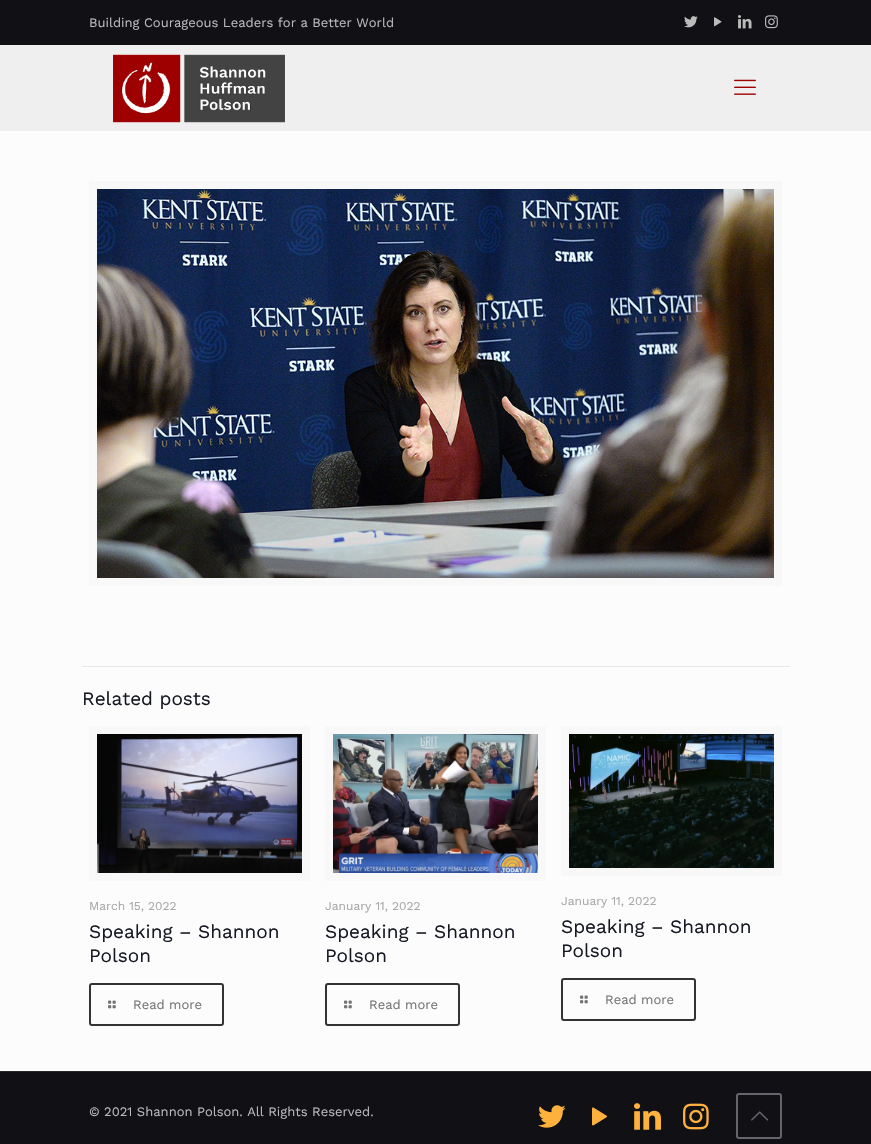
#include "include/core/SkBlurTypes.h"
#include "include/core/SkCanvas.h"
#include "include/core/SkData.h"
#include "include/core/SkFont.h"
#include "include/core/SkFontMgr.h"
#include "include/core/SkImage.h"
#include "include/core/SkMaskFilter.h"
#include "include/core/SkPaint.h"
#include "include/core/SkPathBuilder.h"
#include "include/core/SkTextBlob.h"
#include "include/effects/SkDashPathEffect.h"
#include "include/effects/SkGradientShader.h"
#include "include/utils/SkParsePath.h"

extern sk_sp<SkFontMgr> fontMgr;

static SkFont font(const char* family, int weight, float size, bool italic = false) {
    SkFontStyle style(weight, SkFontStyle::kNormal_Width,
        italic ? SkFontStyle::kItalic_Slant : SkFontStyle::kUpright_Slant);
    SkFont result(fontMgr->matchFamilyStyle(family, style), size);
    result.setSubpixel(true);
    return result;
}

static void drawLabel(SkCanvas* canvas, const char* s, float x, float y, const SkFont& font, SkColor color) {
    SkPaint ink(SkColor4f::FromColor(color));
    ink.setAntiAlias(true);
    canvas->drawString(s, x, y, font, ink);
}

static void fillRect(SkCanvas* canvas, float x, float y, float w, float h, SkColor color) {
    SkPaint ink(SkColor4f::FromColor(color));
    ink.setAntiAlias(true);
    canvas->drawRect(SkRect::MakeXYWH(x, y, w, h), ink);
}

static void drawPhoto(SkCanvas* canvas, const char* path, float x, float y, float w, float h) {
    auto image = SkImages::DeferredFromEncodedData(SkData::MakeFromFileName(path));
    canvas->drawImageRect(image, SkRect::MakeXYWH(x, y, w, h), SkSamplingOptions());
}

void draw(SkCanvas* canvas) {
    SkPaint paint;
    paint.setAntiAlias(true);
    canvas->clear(0xFFFCFCFC);
    fillRect(canvas, 0, 0, 871, 45, 0xFF101015);
    SkFont font1 = font("Work Sans", 400, 13);
    drawLabel(canvas, "Building Courageous Leaders for a Better World", 89, 27, font1, 0xFFBBBBBB);
    drawPhoto(canvas, "assets/img1.png", 684, 16, 14, 12);
    drawPhoto(canvas, "assets/img2.png", 714, 17, 8, 10);
    drawPhoto(canvas, "assets/img3.png", 738, 15, 14, 14);
    drawPhoto(canvas, "assets/img4.png", 765, 15, 13, 14);
    fillRect(canvas, 0, 45, 871, 86, 0xFFEFEFEF);
    drawPhoto(canvas, "assets/img5.png", 113, 54, 172, 69);
    drawPhoto(canvas, "assets/img6.png", 734, 79, 22, 16);
    paint.setStroke(true);
    paint.setStrokeWidth(8);
    paint.setColor(0xFFF8F8F8);
    canvas->drawRect(SkRect::MakeXYWH(93, 185, 685, 397), paint);
    drawPhoto(canvas, "assets/img7.png", 97, 189, 677, 389);
    fillRect(canvas, 82, 666, 708, 1, 0xFFE8E8E8);
    SkFont font2 = font("Work Sans", 400, 19);
    drawLabel(canvas, "Related posts", 82, 705, font2, 0xFF161922);
    canvas->drawRect(SkRect::MakeXYWH(93, 730, 213, 147), paint);
    drawPhoto(canvas, "assets/img8.png", 97, 734, 205, 139);
    SkFont font3 = font("Work Sans", 400, 12);
    drawLabel(canvas, "March 15, 2022", 89, 910, font3, 0xFFA8A8A8);
    drawLabel(canvas, "Speaking – Shannon", 89, 938, font2, 0xFF161922);
    drawLabel(canvas, "Polson", 89, 962, font2, 0xFF161922);
    paint.setStrokeWidth(2);
    paint.setColor(0xFF333333);
    canvas->drawRoundRect(SkRect::MakeXYWH(90, 984, 133, 41), 2, 2, paint);
    drawPhoto(canvas, "assets/img9.png", 108, 1000, 8, 9);
    drawLabel(canvas, "Read more", 133, 1009, font1, 0xFF747474);
    paint.setStrokeWidth(8);
    paint.setColor(0xFFF8F8F8);
    canvas->drawRect(SkRect::MakeXYWH(329, 730, 213, 147), paint);
    drawPhoto(canvas, "assets/img10.png", 333, 734, 205, 139);
    drawLabel(canvas, "January 11, 2022", 325, 910, font3, 0xFFA8A8A8);
    drawLabel(canvas, "Speaking – Shannon", 325, 938, font2, 0xFF161922);
    drawLabel(canvas, "Polson", 325, 962, font2, 0xFF161922);
    paint.setStrokeWidth(2);
    paint.setColor(0xFF333333);
    canvas->drawRoundRect(SkRect::MakeXYWH(326, 984, 133, 41), 2, 2, paint);
    drawPhoto(canvas, "assets/img9.png", 344, 1000, 8, 9);
    drawLabel(canvas, "Read more", 369, 1009, font1, 0xFF747474);
    paint.setStrokeWidth(8);
    paint.setColor(0xFFF8F8F8);
    canvas->drawRect(SkRect::MakeXYWH(565, 730, 213, 142), paint);
    drawPhoto(canvas, "assets/img11.png", 569, 734, 205, 134);
    drawLabel(canvas, "January 11, 2022", 561, 905, font3, 0xFFA8A8A8);
    drawLabel(canvas, "Speaking – Shannon", 561, 933, font2, 0xFF161922);
    drawLabel(canvas, "Polson", 561, 957, font2, 0xFF161922);
    paint.setStrokeWidth(2);
    paint.setColor(0xFF333333);
    canvas->drawRoundRect(SkRect::MakeXYWH(562, 979, 133, 41), 2, 2, paint);
    drawPhoto(canvas, "assets/img9.png", 580, 995, 8, 9);
    drawLabel(canvas, "Read more", 605, 1004, font1, 0xFF747474);
    fillRect(canvas, 0, 1072, 871, 72, 0xFF101015);
    fillRect(canvas, 0, 1071, 871, 1, 0xFF28282C);
    drawLabel(canvas, "© 2021 Shannon Polson. All Rights Reserved.", 89, 1116, font1, 0xFFBBBBBB);
    drawPhoto(canvas, "assets/img12.png", 538, 1105, 28, 23);
    drawPhoto(canvas, "assets/img13.png", 592, 1107, 15, 19);
    drawPhoto(canvas, "assets/img14.png", 634, 1103, 27, 27);
    drawPhoto(canvas, "assets/img15.png", 683, 1103, 26, 27);
    paint.setColor(0xFF65666C);
    canvas->drawRoundRect(SkRect::MakeXYWH(737, 1094, 44, 44), 2, 2, paint);
    drawPhoto(canvas, "assets/img16.png", 751, 1111, 18, 10);
}
